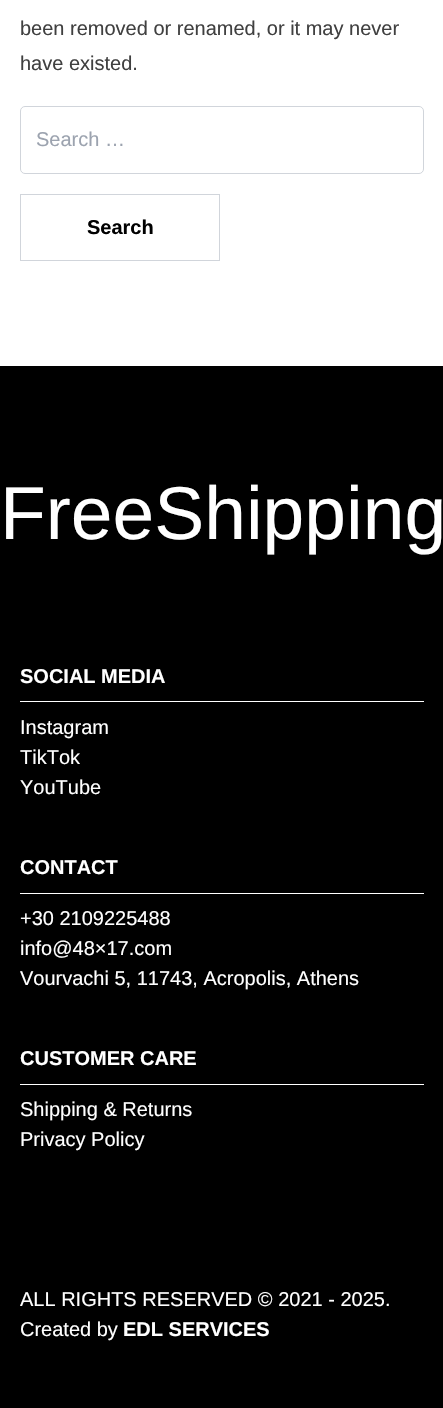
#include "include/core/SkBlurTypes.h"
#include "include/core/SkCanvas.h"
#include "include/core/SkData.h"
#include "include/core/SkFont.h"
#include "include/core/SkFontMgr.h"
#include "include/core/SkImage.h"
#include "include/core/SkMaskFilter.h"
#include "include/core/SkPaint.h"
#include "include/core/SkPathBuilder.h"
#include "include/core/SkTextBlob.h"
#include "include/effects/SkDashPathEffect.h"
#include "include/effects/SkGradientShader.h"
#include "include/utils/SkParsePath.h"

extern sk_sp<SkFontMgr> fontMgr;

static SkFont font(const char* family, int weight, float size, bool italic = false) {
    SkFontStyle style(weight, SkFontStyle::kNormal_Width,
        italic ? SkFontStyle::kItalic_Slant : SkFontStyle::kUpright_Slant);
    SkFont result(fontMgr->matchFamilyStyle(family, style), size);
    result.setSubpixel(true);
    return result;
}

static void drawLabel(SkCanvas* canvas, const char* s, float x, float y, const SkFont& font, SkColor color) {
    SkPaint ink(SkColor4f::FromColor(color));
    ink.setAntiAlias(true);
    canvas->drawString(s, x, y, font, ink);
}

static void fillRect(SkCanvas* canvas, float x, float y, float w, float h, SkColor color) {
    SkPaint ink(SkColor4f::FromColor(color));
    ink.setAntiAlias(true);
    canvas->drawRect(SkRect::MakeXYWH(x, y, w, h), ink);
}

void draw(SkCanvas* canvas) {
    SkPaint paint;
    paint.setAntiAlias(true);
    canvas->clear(0xFFFFFFFF);
    SkFont font1 = font("Liberation Sans", 400, 20);
    drawLabel(canvas, "been removed or renamed, or it may never", 20, 35, font1, 0xFF404040);
    drawLabel(canvas, "have existed.", 20, 70, font1, 0xFF404040);
    paint.setStroke(true);
    paint.setStrokeWidth(1);
    paint.setColor(0xFFD1D5DB);
    canvas->drawRoundRect(SkRect::MakeXYWH(20.5f, 106.5f, 403, 67), 4.5f, 4.5f, paint);
    drawLabel(canvas, "Search …", 36, 146, font1, 0xFF9CA3AF);
    canvas->drawRect(SkRect::MakeXYWH(20.5f, 194.5f, 199, 66), paint);
    SkFont font2 = font("Liberation Sans", 700, 20);
    drawLabel(canvas, "Search", 87, 234, font2, 0xFF000000);
    fillRect(canvas, 0, 366, 443, 1042, 0xFF000000);
    SkFont font3 = font("Liberation Sans", 400, 75);
    drawLabel(canvas, "FreeShipping", 0, 539, font3, 0xFFFFFFFF);
    fillRect(canvas, 20, 701, 404, 1, 0xFFFFFFFF);
    drawLabel(canvas, "SOCIAL MEDIA", 20, 683, font2, 0xFFFFFFFF);
    drawLabel(canvas, "Instagram", 20, 734, font1, 0xFFFFFFFF);
    drawLabel(canvas, "TikTok", 20, 764, font1, 0xFFFFFFFF);
    drawLabel(canvas, "YouTube", 20, 794, font1, 0xFFFFFFFF);
    fillRect(canvas, 20, 893, 404, 1, 0xFFFFFFFF);
    drawLabel(canvas, "CONTACT", 20, 874, font2, 0xFFFFFFFF);
    drawLabel(canvas, "+30 2109225488", 20, 925, font1, 0xFFFFFFFF);
    drawLabel(canvas, "info@48×17.com", 20, 955, font1, 0xFFFFFFFF);
    drawLabel(canvas, "Vourvachi 5, 11743, Acropolis, Athens", 20, 985, font1, 0xFFFFFFFF);
    fillRect(canvas, 20, 1084, 404, 1, 0xFFFFFFFF);
    drawLabel(canvas, "CUSTOMER CARE", 20, 1065, font2, 0xFFFFFFFF);
    drawLabel(canvas, "Shipping & Returns", 20, 1116, font1, 0xFFFFFFFF);
    drawLabel(canvas, "Privacy Policy", 20, 1146, font1, 0xFFFFFFFF);
    drawLabel(canvas, "ALL RIGHTS RESERVED © 2021 - 2025.", 20, 1306, font1, 0xFFFFFFFF);
    drawLabel(canvas, "Created by", 20, 1336, font1, 0xFFFFFFFF);
    drawLabel(canvas, "EDL SERVICES", 123, 1336, font2, 0xFFFFFFFF);
}
